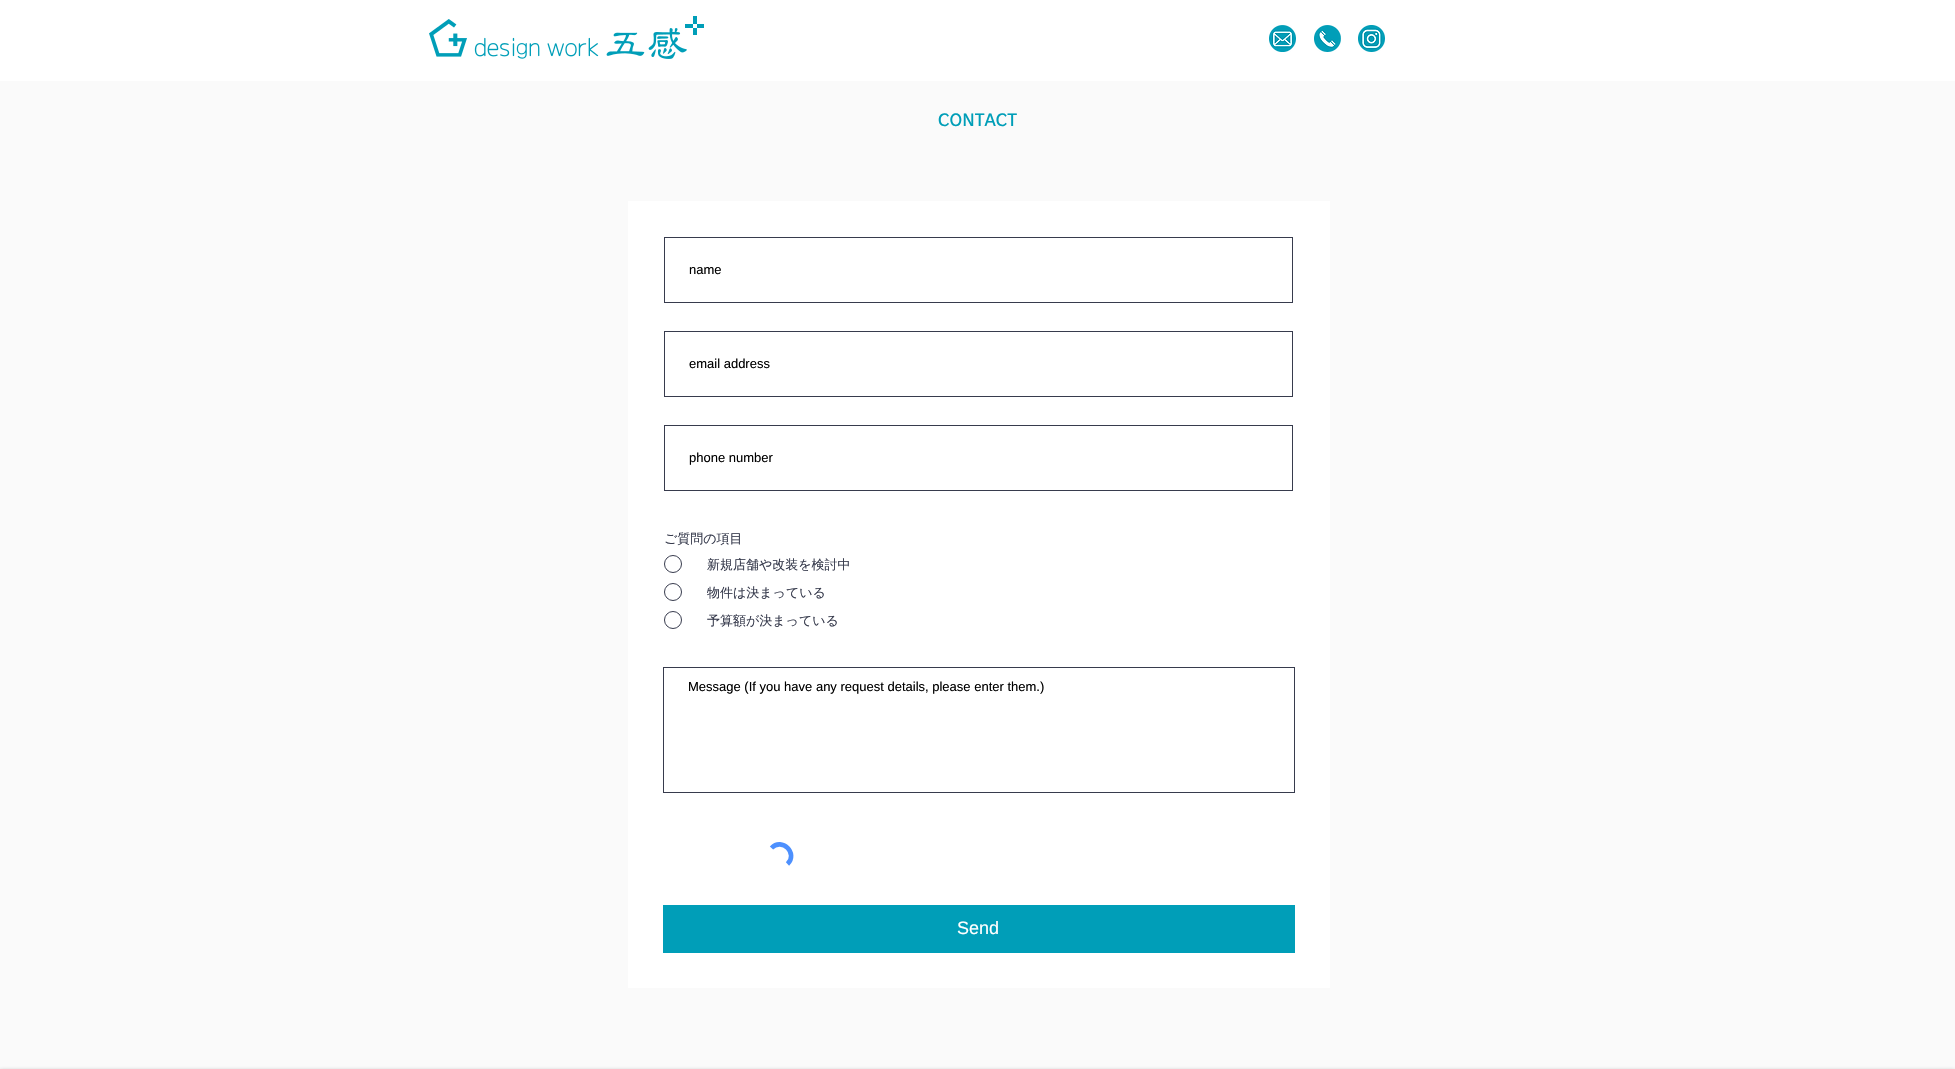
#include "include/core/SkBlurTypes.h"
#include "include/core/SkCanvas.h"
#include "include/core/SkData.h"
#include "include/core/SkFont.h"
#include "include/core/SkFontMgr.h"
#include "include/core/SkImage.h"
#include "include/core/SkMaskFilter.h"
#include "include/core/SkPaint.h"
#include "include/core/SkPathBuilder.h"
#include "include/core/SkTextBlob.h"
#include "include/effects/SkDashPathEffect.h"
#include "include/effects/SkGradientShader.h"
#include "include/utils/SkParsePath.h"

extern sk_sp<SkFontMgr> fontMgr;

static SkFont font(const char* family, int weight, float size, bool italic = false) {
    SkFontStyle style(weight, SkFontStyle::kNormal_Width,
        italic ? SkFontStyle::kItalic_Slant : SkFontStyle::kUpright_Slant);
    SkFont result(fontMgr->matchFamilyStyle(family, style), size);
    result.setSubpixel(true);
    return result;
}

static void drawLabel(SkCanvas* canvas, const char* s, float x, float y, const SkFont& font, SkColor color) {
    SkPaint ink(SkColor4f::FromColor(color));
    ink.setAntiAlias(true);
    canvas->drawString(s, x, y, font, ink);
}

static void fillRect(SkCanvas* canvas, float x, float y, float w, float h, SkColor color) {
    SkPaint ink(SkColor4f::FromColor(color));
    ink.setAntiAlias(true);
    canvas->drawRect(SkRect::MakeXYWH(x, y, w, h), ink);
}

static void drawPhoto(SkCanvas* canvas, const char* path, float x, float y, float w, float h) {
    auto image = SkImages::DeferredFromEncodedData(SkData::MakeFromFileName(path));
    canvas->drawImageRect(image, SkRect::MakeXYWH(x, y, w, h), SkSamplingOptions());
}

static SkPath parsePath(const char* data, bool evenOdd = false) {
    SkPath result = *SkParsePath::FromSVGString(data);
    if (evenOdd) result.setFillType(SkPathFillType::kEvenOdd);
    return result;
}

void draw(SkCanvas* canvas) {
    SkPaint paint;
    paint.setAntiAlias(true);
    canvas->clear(0xFFFFFFFF);
    drawPhoto(canvas, "assets/img1.png", 429, 16, 275, 43);
    drawPhoto(canvas, "assets/img2.png", 1269, 25, 27, 27);
    drawPhoto(canvas, "assets/img3.png", 1314, 25, 27, 27);
    drawPhoto(canvas, "assets/img4.png", 1358, 25, 27, 27);
    fillRect(canvas, 0, 81, 1955, 988, 0xFFFAFAFA);
    SkFont font1 = font("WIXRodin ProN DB", 600, 16);
    drawLabel(canvas, "CONTACT", 938, 126, font1, 0xFF009EB8);
    fillRect(canvas, 628, 201, 702, 787, 0xFFFFFFFF);
    paint.setStroke(true);
    paint.setStrokeWidth(1);
    paint.setColor(0xFF373B4D);
    canvas->drawRect(SkRect::MakeXYWH(664.5f, 237.5f, 628, 65), paint);
    SkFont font2 = font("Liberation Sans", 400, 13);
    drawLabel(canvas, "name", 689, 274, font2, 0xFF000000);
    canvas->drawRect(SkRect::MakeXYWH(664.5f, 331.5f, 628, 65), paint);
    drawLabel(canvas, "email address", 689, 368, font2, 0xFF000000);
    canvas->drawRect(SkRect::MakeXYWH(664.5f, 425.5f, 628, 65), paint);
    drawLabel(canvas, "phone number", 689, 462, font2, 0xFF000000);
    SkFont font3 = font("WenQuanYi Zen Hei", 500, 13);
    drawLabel(canvas, "ご質問の項目", 664, 543, font3, 0xFF373B4D);
    canvas->drawCircle(673, 564, 8.5f, paint);
    drawLabel(canvas, "新規店舗や改装を検討中", 707, 569, font3, 0xFF373B4D);
    canvas->drawCircle(673, 592, 8.5f, paint);
    drawLabel(canvas, "物件は決まっている", 707, 597, font3, 0xFF373B4D);
    canvas->drawCircle(673, 620, 8.5f, paint);
    drawLabel(canvas, "予算額が決まっている", 707, 625, font3, 0xFF373B4D);
    canvas->drawRect(SkRect::MakeXYWH(663.5f, 667.5f, 631, 125), paint);
    drawLabel(canvas, "Message (If you have any request details, please enter them.)", 688, 691, font2, 0xFF000000);
    paint.setStrokeWidth(4.6f);
    paint.setColor(0xFF4D90FE);
    canvas->drawPath(parsePath("M771.5 848C782 837 798.5 853.5 787.5 864"), paint);
    fillRect(canvas, 663, 905, 632, 48, 0xFF009EB8);
    SkFont font4 = font("Liberation Sans", 400, 18);
    drawLabel(canvas, "Send", 957, 934, font4, 0xFFFFFFFF);
    paint.setStroke(false);
    paint.setColor(0xB3000000);
    paint.setMaskFilter(SkMaskFilter::MakeBlur(kNormal_SkBlurStyle, 2.5f));
    canvas->drawRect(SkRect::MakeXYWH(0, 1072, 1955, 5), paint);
    paint.setMaskFilter(nullptr);
}
